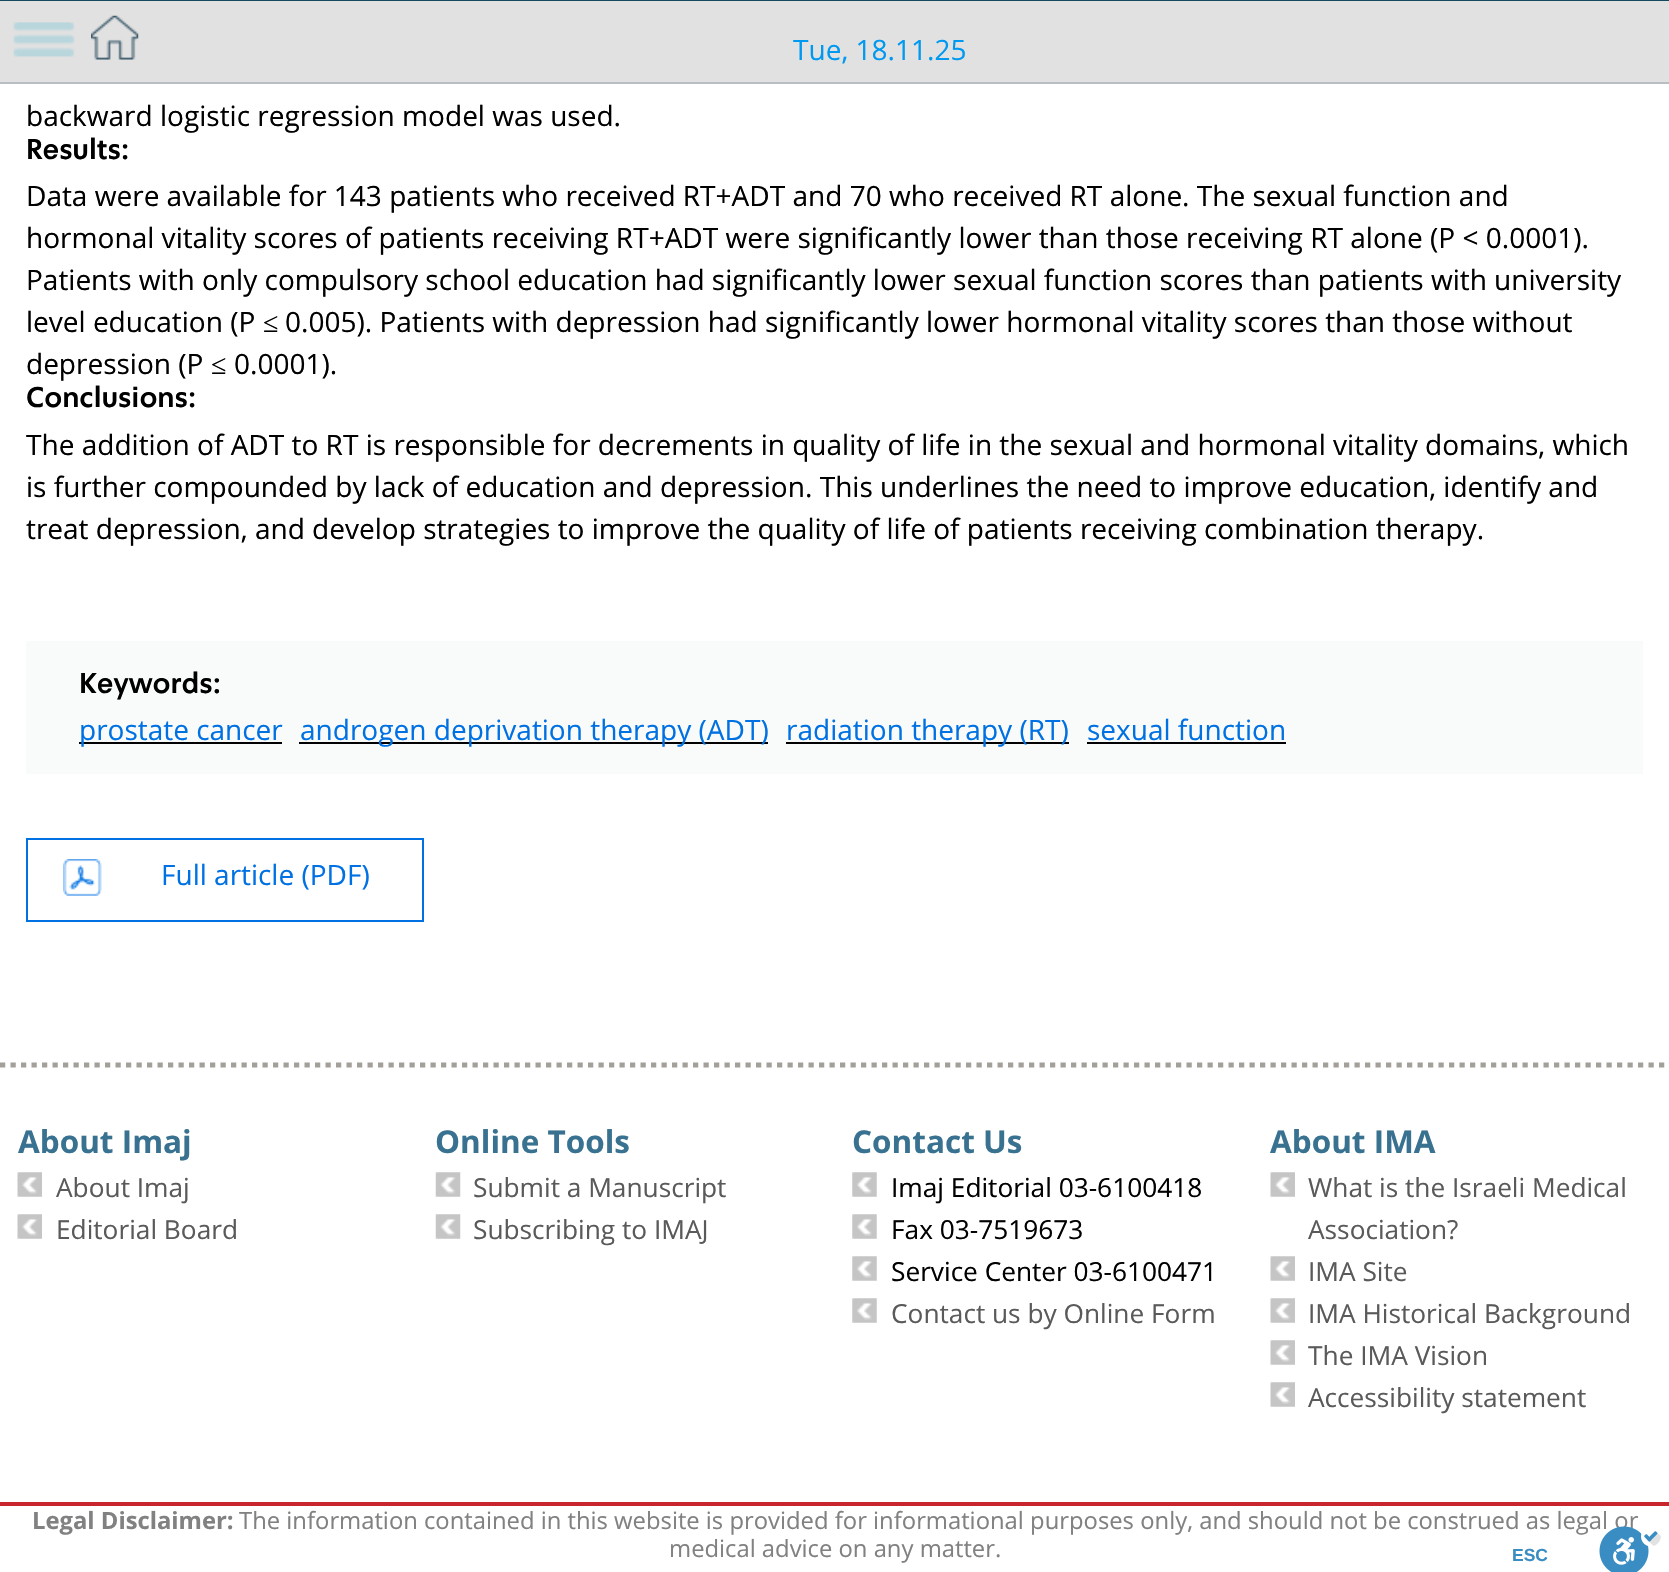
#include "include/core/SkBlurTypes.h"
#include "include/core/SkCanvas.h"
#include "include/core/SkData.h"
#include "include/core/SkFont.h"
#include "include/core/SkFontMgr.h"
#include "include/core/SkImage.h"
#include "include/core/SkMaskFilter.h"
#include "include/core/SkPaint.h"
#include "include/core/SkPathBuilder.h"
#include "include/core/SkTextBlob.h"
#include "include/effects/SkDashPathEffect.h"
#include "include/effects/SkGradientShader.h"
#include "include/utils/SkParsePath.h"

extern sk_sp<SkFontMgr> fontMgr;

static SkFont font(const char* family, int weight, float size, bool italic = false) {
    SkFontStyle style(weight, SkFontStyle::kNormal_Width,
        italic ? SkFontStyle::kItalic_Slant : SkFontStyle::kUpright_Slant);
    SkFont result(fontMgr->matchFamilyStyle(family, style), size);
    result.setSubpixel(true);
    return result;
}

static void drawLabel(SkCanvas* canvas, const char* s, float x, float y, const SkFont& font, SkColor color) {
    SkPaint ink(SkColor4f::FromColor(color));
    ink.setAntiAlias(true);
    canvas->drawString(s, x, y, font, ink);
}

static void fillRect(SkCanvas* canvas, float x, float y, float w, float h, SkColor color) {
    SkPaint ink(SkColor4f::FromColor(color));
    ink.setAntiAlias(true);
    canvas->drawRect(SkRect::MakeXYWH(x, y, w, h), ink);
}

static void drawPhoto(SkCanvas* canvas, const char* path, float x, float y, float w, float h) {
    auto image = SkImages::DeferredFromEncodedData(SkData::MakeFromFileName(path));
    canvas->drawImageRect(image, SkRect::MakeXYWH(x, y, w, h), SkSamplingOptions());
}

static SkPath parsePath(const char* data, bool evenOdd = false) {
    SkPath result = *SkParsePath::FromSVGString(data);
    if (evenOdd) result.setFillType(SkPathFillType::kEvenOdd);
    return result;
}

void draw(SkCanvas* canvas) {
    SkPaint paint;
    paint.setAntiAlias(true);
    canvas->clear(0xFFFFFFFF);
    fillRect(canvas, 0, 1, 1669, 81, 0xFFE1E1E1);
    drawPhoto(canvas, "assets/img1.png", 13, 22, 62, 35);
    fillRect(canvas, 0, 82, 1669, 2, 0xFFB8BEC3);
    drawPhoto(canvas, "assets/img2.png", 91, 15, 48, 45);
    SkFont font1 = font("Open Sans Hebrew", 400, 28);
    drawLabel(canvas, "Tue, 18.11.25", 793, 60, font1, 0xFF0099F0);
    drawLabel(canvas, "backward logistic regression model was used.", 26, 126, font1, 0xFF000000);
    SkFont font2 = font("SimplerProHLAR", 700, 28);
    drawLabel(canvas, "Results:", 26, 159, font2, 0xFF000000);
    drawLabel(canvas, "Data were available for 143 patients who received RT+ADT and 70 who received RT alone. The sexual function and", 26, 206, font1, 0xFF000000);
    drawLabel(canvas, "hormonal vitality scores of patients receiving RT+ADT were significantly lower than those receiving RT alone (P < 0.0001).", 26, 248, font1, 0xFF000000);
    drawLabel(canvas, "Patients with only compulsory school education had significantly lower sexual function scores than patients with university", 26, 290, font1, 0xFF000000);
    drawLabel(canvas, "level education (P", 26, 332, font1, 0xFF000000);
    SkFont font3 = font("Liberation Serif", 400, 28);
    drawLabel(canvas, "≤", 263, 332, font3, 0xFF000000);
    drawLabel(canvas, "0.005). Patients with depression had significantly lower hormonal vitality scores than those without", 285, 332, font1, 0xFF000000);
    drawLabel(canvas, "depression (P", 26, 374, font1, 0xFF000000);
    drawLabel(canvas, "≤", 211, 374, font3, 0xFF000000);
    drawLabel(canvas, "0.0001).", 234, 374, font1, 0xFF000000);
    drawLabel(canvas, "Conclusions:", 26, 407, font2, 0xFF000000);
    drawLabel(canvas, "The addition of ADT to RT is responsible for decrements in quality of life in the sexual and hormonal vitality domains, which", 26, 455, font1, 0xFF000000);
    drawLabel(canvas, "is further compounded by lack of education and depression. This underlines the need to improve education, identify and", 26, 497, font1, 0xFF000000);
    drawLabel(canvas, "treat depression, and develop strategies to improve the quality of life of patients receiving combination therapy.", 26, 539, font1, 0xFF000000);
    fillRect(canvas, 26, 641, 1617, 133, 0xFFF9FAFA);
    drawLabel(canvas, "Keywords:", 79, 693, font2, 0xFF000000);
    fillRect(canvas, 79, 742, 203, 2, 0xFF000000);
    drawLabel(canvas, "prostate cancer", 79, 740, font1, 0xFF0071E3);
    fillRect(canvas, 299, 742, 469, 2, 0xFF000000);
    drawLabel(canvas, "androgen deprivation therapy (ADT)", 300, 740, font1, 0xFF0071E3);
    fillRect(canvas, 786, 742, 283, 2, 0xFF000000);
    drawLabel(canvas, "radiation therapy (RT)", 786, 740, font1, 0xFF0071E3);
    drawLabel(canvas, "sexual function", 1087, 740, font1, 0xFF0071E3);
    fillRect(canvas, 1087, 742, 199, 2, 0xFF000000);
    drawPhoto(canvas, "assets/img3.png", 63, 859, 39, 37);
    paint.setStroke(true);
    paint.setStrokeWidth(2);
    paint.setColor(0xFF0071E3);
    canvas->drawRect(SkRect::MakeXYWH(27, 839, 396, 82), paint);
    drawLabel(canvas, "Full article (PDF)", 161, 885, font1, 0xFF0071E3);
    paint.setStrokeWidth(5.2f);
    paint.setColor(0xFFA39F99);
    paint.setPathEffect(SkDashPathEffect::Make({{5.25f, 5.25f}}, 0));
    canvas->drawPath(parsePath("M0 1065H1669.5"), paint);
    paint.setPathEffect(nullptr);
    fillRect(canvas, 0, 1502, 1669, 4, 0xFFC9252C);
    SkFont font4 = font("Open Sans Hebrew", 700, 31.5f);
    drawLabel(canvas, "About Imaj", 18, 1153, font4, 0xFF397290);
    drawPhoto(canvas, "assets/img4.png", 17, 1172, 25, 25);
    SkFont font5 = font("Open Sans Hebrew", 400, 26.25f);
    drawLabel(canvas, "About Imaj", 56, 1197, font5, 0xFF5A5A5A);
    drawPhoto(canvas, "assets/img4.png", 17, 1214, 25, 25);
    drawLabel(canvas, "Editorial Board", 56, 1239, font5, 0xFF5A5A5A);
    drawLabel(canvas, "Online Tools", 435, 1153, font4, 0xFF397290);
    drawPhoto(canvas, "assets/img5.png", 435, 1172, 26, 25);
    drawLabel(canvas, "Submit a Manuscript", 473, 1197, font5, 0xFF5A5A5A);
    drawPhoto(canvas, "assets/img5.png", 435, 1214, 26, 25);
    drawLabel(canvas, "Subscribing to IMAJ", 473, 1239, font5, 0xFF5A5A5A);
    drawLabel(canvas, "Contact Us", 852, 1153, font4, 0xFF397290);
    drawPhoto(canvas, "assets/img6.png", 852, 1172, 25, 25);
    drawLabel(canvas, "Imaj Editorial 03-6100418", 891, 1197, font5, 0xFF000000);
    drawPhoto(canvas, "assets/img6.png", 852, 1214, 25, 25);
    drawLabel(canvas, "Fax 03-7519673", 891, 1239, font5, 0xFF000000);
    drawPhoto(canvas, "assets/img6.png", 852, 1256, 25, 25);
    drawLabel(canvas, "Service Center 03-6100471", 891, 1281, font5, 0xFF000000);
    drawPhoto(canvas, "assets/img6.png", 852, 1298, 25, 25);
    drawLabel(canvas, "Contact us by Online Form", 891, 1323, font5, 0xFF5A5A5A);
    drawLabel(canvas, "About IMA", 1270, 1153, font4, 0xFF397290);
    drawPhoto(canvas, "assets/img4.png", 1270, 1172, 25, 25);
    drawLabel(canvas, "What is the Israeli Medical", 1308, 1197, font5, 0xFF5A5A5A);
    drawLabel(canvas, "Association?", 1308, 1239, font5, 0xFF5A5A5A);
    drawPhoto(canvas, "assets/img4.png", 1270, 1256, 25, 25);
    drawLabel(canvas, "IMA Site", 1308, 1281, font5, 0xFF5A5A5A);
    drawPhoto(canvas, "assets/img4.png", 1270, 1298, 25, 25);
    drawLabel(canvas, "IMA Historical Background", 1308, 1323, font5, 0xFF5A5A5A);
    drawPhoto(canvas, "assets/img4.png", 1270, 1340, 25, 25);
    drawLabel(canvas, "The IMA Vision", 1308, 1365, font5, 0xFF5A5A5A);
    drawPhoto(canvas, "assets/img4.png", 1270, 1382, 25, 25);
    drawLabel(canvas, "Accessibility statement", 1308, 1407, font5, 0xFF5A5A5A);
    SkFont font6 = font("Open Sans Hebrew", 700, 23.8f);
    drawLabel(canvas, "Legal Disclaimer:", 32, 1529, font6, 0xFF818181);
    SkFont font7 = font("Open Sans Hebrew", 400, 23.8f);
    drawLabel(canvas, "The information contained in this website is provided for informational purposes only, and should not be construed as legal or", 239, 1529, font7, 0xFF818181);
    drawLabel(canvas, "medical advice on any matter.", 669, 1557, font7, 0xFF818181);
    fillRect(canvas, 0, 0, 1669, 1, 0xFF15495F);
    SkFont font8 = font("Liberation Sans", 700, 17.5f);
    drawLabel(canvas, "ESC", 1512, 1561, font8, 0xFF3A8DC2);
    drawPhoto(canvas, "assets/img7.png", 1599, 1526, 62, 46);
}
